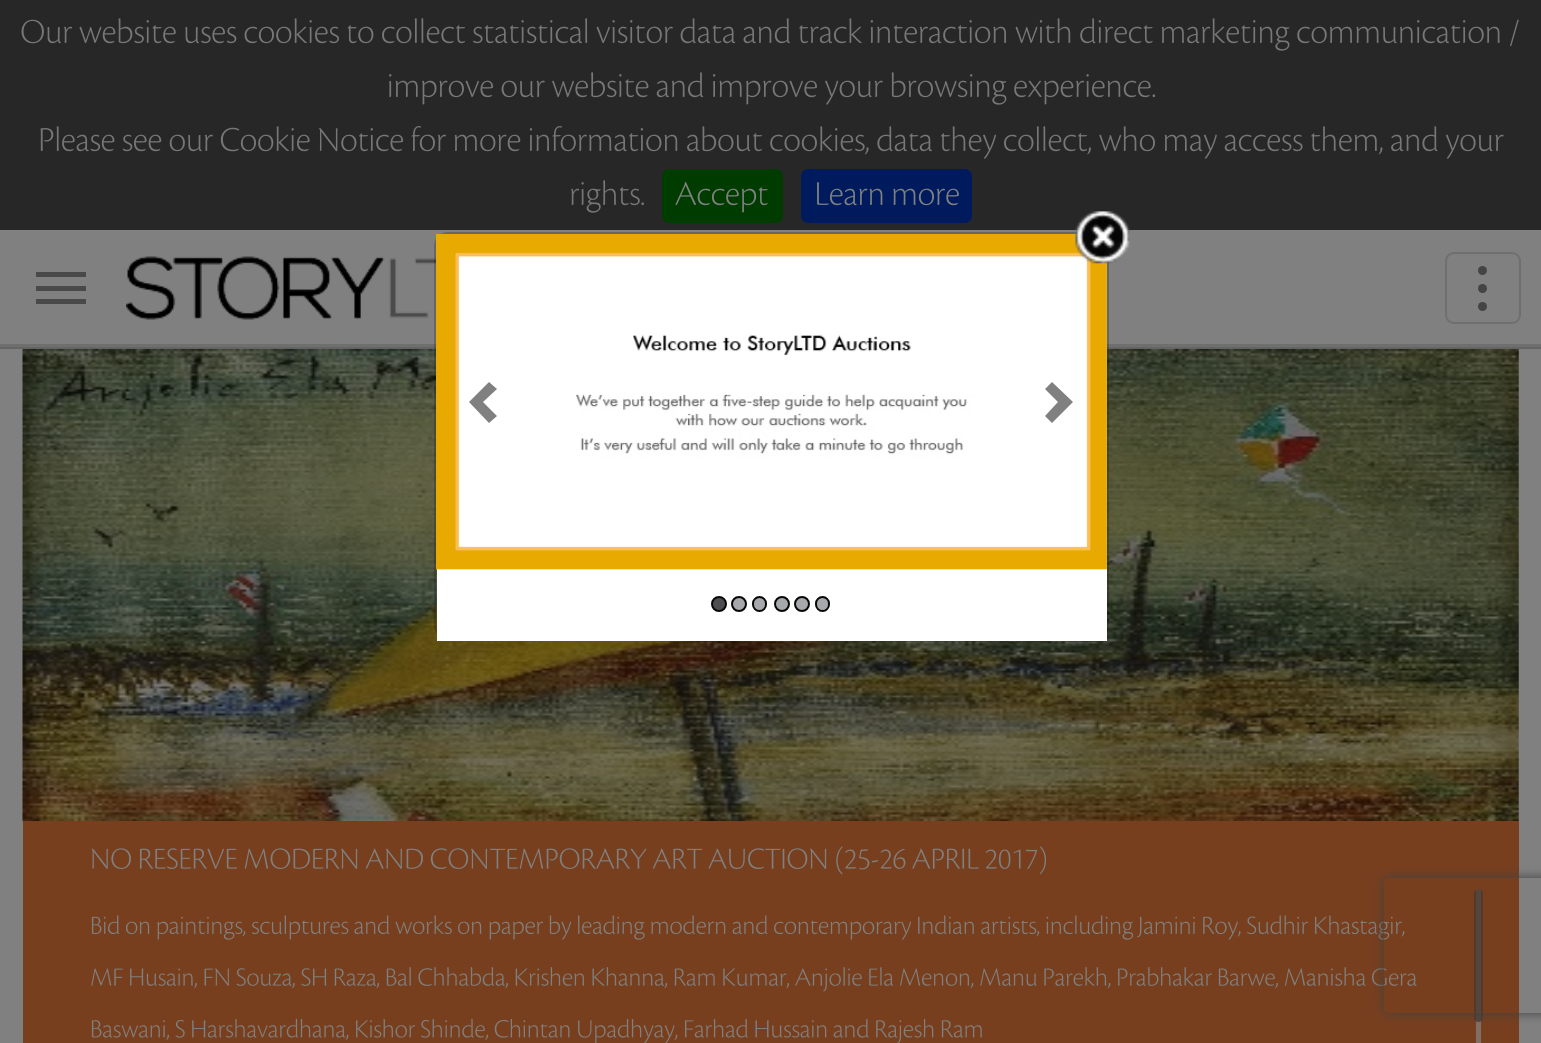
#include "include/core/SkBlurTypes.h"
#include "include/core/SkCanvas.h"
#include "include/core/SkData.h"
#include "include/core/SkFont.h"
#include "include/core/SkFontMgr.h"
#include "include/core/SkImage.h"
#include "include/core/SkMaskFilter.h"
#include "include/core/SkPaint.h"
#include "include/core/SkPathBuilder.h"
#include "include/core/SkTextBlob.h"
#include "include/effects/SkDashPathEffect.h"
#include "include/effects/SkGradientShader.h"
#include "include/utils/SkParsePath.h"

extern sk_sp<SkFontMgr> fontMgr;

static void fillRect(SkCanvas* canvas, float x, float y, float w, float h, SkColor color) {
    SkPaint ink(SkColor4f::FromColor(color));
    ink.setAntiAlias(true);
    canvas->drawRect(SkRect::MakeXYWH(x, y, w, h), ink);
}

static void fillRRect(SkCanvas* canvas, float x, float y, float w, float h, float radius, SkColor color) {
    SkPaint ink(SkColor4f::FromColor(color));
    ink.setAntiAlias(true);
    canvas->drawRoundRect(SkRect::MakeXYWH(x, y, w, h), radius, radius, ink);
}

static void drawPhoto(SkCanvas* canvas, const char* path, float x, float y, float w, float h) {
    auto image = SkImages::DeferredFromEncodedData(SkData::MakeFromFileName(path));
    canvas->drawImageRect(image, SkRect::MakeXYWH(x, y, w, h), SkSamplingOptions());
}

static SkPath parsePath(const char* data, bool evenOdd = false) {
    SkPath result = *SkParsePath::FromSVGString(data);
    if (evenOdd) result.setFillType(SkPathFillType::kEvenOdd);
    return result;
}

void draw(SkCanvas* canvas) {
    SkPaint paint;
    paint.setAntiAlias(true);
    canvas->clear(0xFF808080);
    fillRect(canvas, 0, 0, 1541, 230, 0xFF272727);
    drawPhoto(canvas, "assets/img1.png", 21, 18, 1498, 33);
    drawPhoto(canvas, "assets/img2.png", 389, 72, 767, 33);
    drawPhoto(canvas, "assets/img3.png", 40, 126, 1464, 33);
    drawPhoto(canvas, "assets/img4.png", 571, 180, 73, 33);
    fillRRect(canvas, 662, 169, 121, 54, 7, 0xFF003C00);
    drawPhoto(canvas, "assets/img5.png", 675, 182, 93, 31);
    fillRRect(canvas, 801, 169, 171, 54, 7, 0xFF001A5E);
    drawPhoto(canvas, "assets/img6.png", 817, 182, 142, 24);
    fillRect(canvas, 0, 347, 1541, 2, 0xFF656565);
    drawPhoto(canvas, "assets/img9.png", 22, 348, 1497, 474);
    drawPhoto(canvas, "assets/img15.png", 126, 256, 311, 64);
    fillRect(canvas, 0, 344, 1541, 3, 0xFF6F6F6F);
    paint.setStroke(true);
    paint.setStrokeWidth(2);
    paint.setColor(0x33000000);
    canvas->drawRoundRect(SkRect::MakeXYWH(435, 233, 673, 405), 13, 13, paint);
    fillRect(canvas, 437, 234, 670, 407, 0xFFFFFFFF);
    drawPhoto(canvas, "assets/img8.png", 436, 234, 671, 336);
    drawPhoto(canvas, "assets/img7.png", 1075, 211, 55, 53);
    paint.setStroke(false);
    paint.setColor(0xFF808080);
    canvas->drawPath(parsePath("M497 389L483 402L497 416L489 423L469 402L489 382Z"), paint);
    canvas->drawPath(parsePath("M1073 402L1052 423L1045 416L1058 402L1045 389L1052 382Z"), paint);
    paint.setColor(0xFF4E4E50);
    canvas->drawCircle(719, 604, 7, paint);
    paint.setStroke(true);
    paint.setColor(0xFF070707);
    canvas->drawCircle(719, 604, 7, paint);
    paint.setStroke(false);
    paint.setColor(0xFFA7A8AC);
    canvas->drawCircle(739, 604, 7, paint);
    paint.setStroke(true);
    paint.setColor(0xFF070707);
    canvas->drawCircle(739, 604, 7, paint);
    paint.setStroke(false);
    paint.setColor(0xFFA7A8AC);
    canvas->drawRoundRect(SkRect::MakeXYWH(753, 597, 13, 14), 6.5f, 6.5f, paint);
    paint.setStroke(true);
    paint.setColor(0xFF070707);
    canvas->drawRoundRect(SkRect::MakeXYWH(753, 597, 13, 14), 6.5f, 6.5f, paint);
    paint.setStroke(false);
    paint.setColor(0xFFA7A8AC);
    canvas->drawCircle(782, 604, 7, paint);
    paint.setStroke(true);
    paint.setColor(0xFF070707);
    canvas->drawCircle(782, 604, 7, paint);
    paint.setStroke(false);
    paint.setColor(0xFFA7A8AC);
    canvas->drawCircle(802, 604, 7, paint);
    paint.setStroke(true);
    paint.setColor(0xFF070707);
    canvas->drawCircle(802, 604, 7, paint);
    paint.setStroke(false);
    paint.setColor(0xFFA7A8AC);
    canvas->drawRoundRect(SkRect::MakeXYWH(816, 597, 13, 14), 6.5f, 6.5f, paint);
    paint.setStroke(true);
    paint.setColor(0xFF070707);
    canvas->drawRoundRect(SkRect::MakeXYWH(816, 597, 13, 14), 6.5f, 6.5f, paint);
    fillRect(canvas, 23, 821, 1496, 222, 0xFF773F1E);
    drawPhoto(canvas, "assets/img10.png", 91, 848, 736, 21);
    drawPhoto(canvas, "assets/img11.png", 836, 846, 210, 29);
    drawPhoto(canvas, "assets/img12.png", 91, 915, 1314, 25);
    drawPhoto(canvas, "assets/img13.png", 91, 967, 1326, 25);
    drawPhoto(canvas, "assets/img14.png", 91, 1018, 891, 25);
    fillRRect(canvas, 1476, 889, 5, 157, 2.5f, 0xFF7E7067);
    fillRRect(canvas, 1474, 889, 9, 133, 4.5f, 0xBF45372F);
    fillRect(canvas, 36, 286, 50, 5, 0xFF494949);
    fillRect(canvas, 36, 272, 50, 5, 0xFF494949);
    fillRect(canvas, 36, 299, 50, 5, 0xFF494949);
    paint.setColor(0xFF6F6F6F);
    canvas->drawRoundRect(SkRect::MakeXYWH(1446, 253, 74, 70), 8, 8, paint);
    paint.setStroke(false);
    paint.setColor(0xFF444444);
    canvas->drawCircle(1482.5f, 270.5f, 4.5f, paint);
    canvas->drawCircle(1482.5f, 288.5f, 4.5f, paint);
    canvas->drawCircle(1482.5f, 306.5f, 4.5f, paint);
    canvas->save();
    canvas->clipPath(parsePath("M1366 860H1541V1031H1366ZM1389 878H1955C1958 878 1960 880 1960 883V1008C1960 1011 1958 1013 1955 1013H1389C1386 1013 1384 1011 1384 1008V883C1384 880 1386 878 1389 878Z", true), true);
    paint.setColor(0xFF404040);
    paint.setMaskFilter(SkMaskFilter::MakeBlur(kNormal_SkBlurStyle, 5.5f));
    canvas->drawRoundRect(SkRect::MakeXYWH(1384, 878, 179, 135), 5, 5, paint);
    paint.setMaskFilter(nullptr);
    canvas->restore();
}
